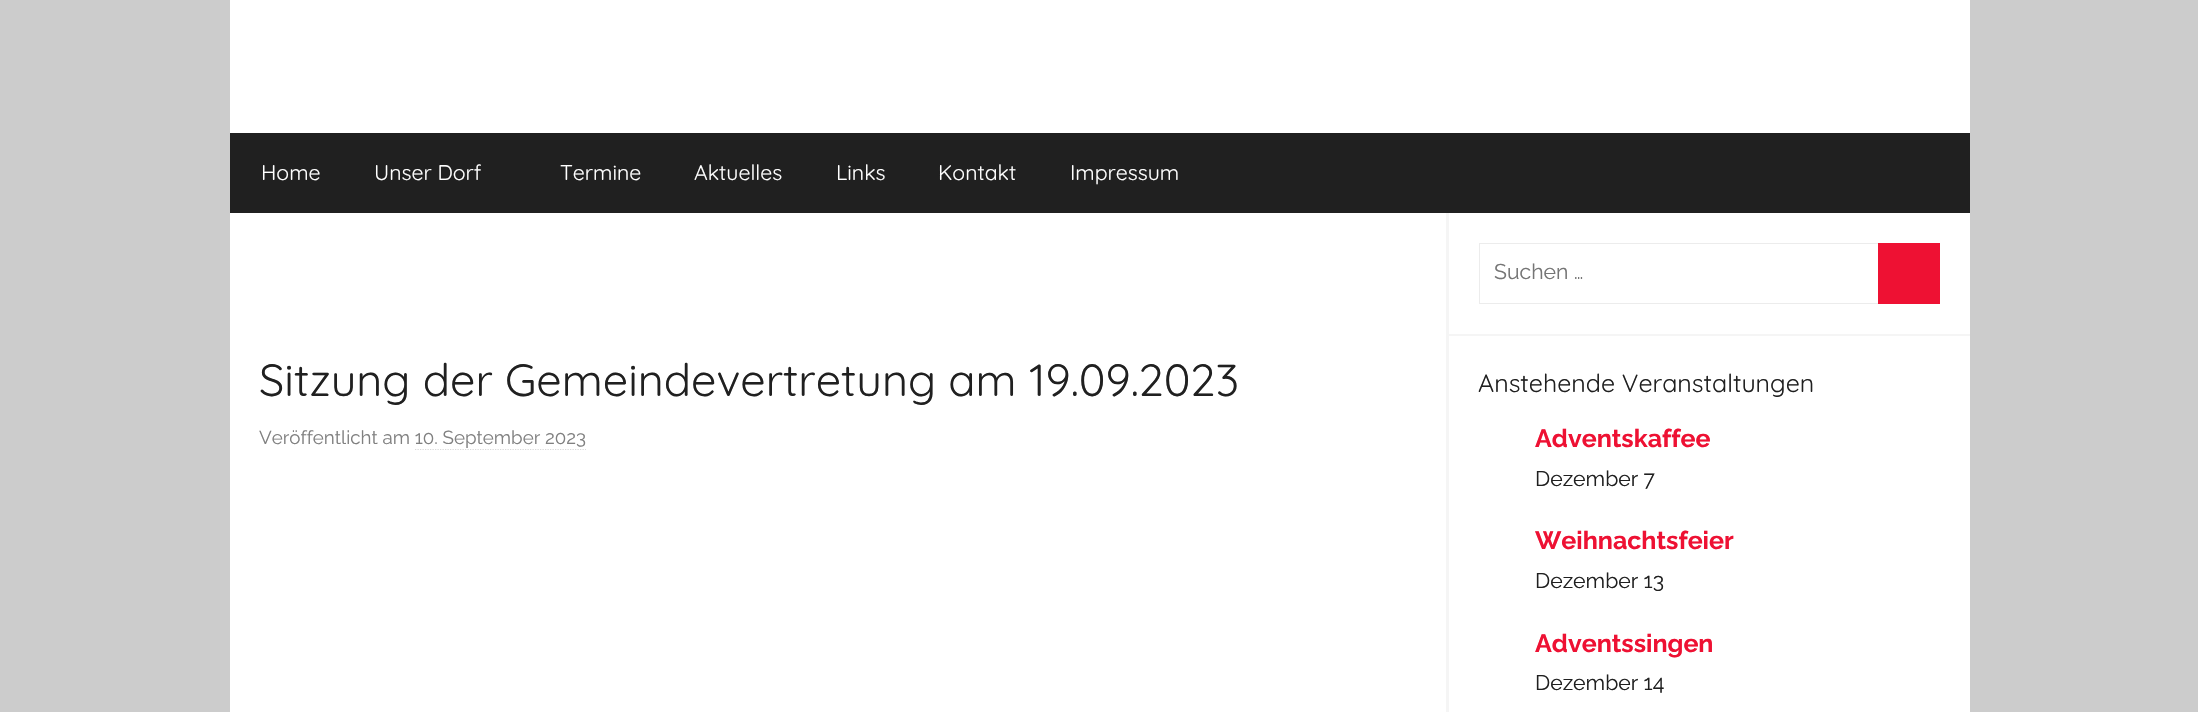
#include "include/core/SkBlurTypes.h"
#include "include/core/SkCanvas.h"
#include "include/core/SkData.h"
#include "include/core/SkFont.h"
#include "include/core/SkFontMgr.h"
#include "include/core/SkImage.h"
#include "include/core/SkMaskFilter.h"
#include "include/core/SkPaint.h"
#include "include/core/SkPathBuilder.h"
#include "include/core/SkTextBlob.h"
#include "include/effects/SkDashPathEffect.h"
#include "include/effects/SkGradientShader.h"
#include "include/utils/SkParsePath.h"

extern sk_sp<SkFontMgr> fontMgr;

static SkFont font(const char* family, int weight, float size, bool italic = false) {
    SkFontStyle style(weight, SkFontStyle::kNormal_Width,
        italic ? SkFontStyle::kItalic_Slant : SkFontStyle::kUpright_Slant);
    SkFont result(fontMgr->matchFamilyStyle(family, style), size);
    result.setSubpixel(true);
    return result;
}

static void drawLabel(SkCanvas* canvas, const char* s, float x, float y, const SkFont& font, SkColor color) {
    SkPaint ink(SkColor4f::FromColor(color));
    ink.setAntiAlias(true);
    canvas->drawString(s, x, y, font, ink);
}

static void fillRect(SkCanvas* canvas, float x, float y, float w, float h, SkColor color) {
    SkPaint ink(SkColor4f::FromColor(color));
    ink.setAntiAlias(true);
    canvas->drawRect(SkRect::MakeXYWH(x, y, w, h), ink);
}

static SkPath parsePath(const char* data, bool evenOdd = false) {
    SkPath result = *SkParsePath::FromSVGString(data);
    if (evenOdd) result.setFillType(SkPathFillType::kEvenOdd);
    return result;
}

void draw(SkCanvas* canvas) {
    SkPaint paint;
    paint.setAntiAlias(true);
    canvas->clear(0xFFCCCCCC);
    fillRect(canvas, 230, 0, 1740, 133, 0xFFFFFFFF);
    fillRect(canvas, 230, 133, 1740, 80, 0xFF202020);
    SkFont font1 = font("Quicksand", 400, 21.25f);
    drawLabel(canvas, "Home", 261, 180, font1, 0xFFFFFFFF);
    drawLabel(canvas, "Unser Dorf", 374, 180, font1, 0xFFFFFFFF);
    drawLabel(canvas, "Termine", 560, 180, font1, 0xFFFFFFFF);
    drawLabel(canvas, "Aktuelles", 694, 180, font1, 0xFFFFFFFF);
    drawLabel(canvas, "Links", 836, 180, font1, 0xFFFFFFFF);
    drawLabel(canvas, "Kontakt", 938, 180, font1, 0xFFFFFFFF);
    drawLabel(canvas, "Impressum", 1070, 180, font1, 0xFFFFFFFF);
    fillRect(canvas, 1446, 213, 3, 499, 0xFFF5F5F5);
    fillRect(canvas, 230, 213, 1216, 499, 0xFFFFFFFF);
    SkFont font2 = font("Quicksand", 400, 45);
    drawLabel(canvas, "Sitzung der Gemeindevertretung am 19.09.2023", 259, 396, font2, 0xFF202020);
    SkFont font3 = font("Raleway", 400, 18.75f);
    drawLabel(canvas, "Veröffentlicht am 10. September 2023", 259, 444, font3, 0xFF808080);
    paint.setStroke(true);
    paint.setStrokeWidth(1.2f);
    paint.setColor(0xFFD9D9D9);
    paint.setPathEffect(SkDashPathEffect::Make({{1.25f, 1.25f}}, 0));
    canvas->drawPath(parsePath("M415 449.5H586"), paint);
    paint.setPathEffect(nullptr);
    fillRect(canvas, 1449, 213, 521, 121, 0xFFFFFFFF);
    fillRect(canvas, 1449, 334, 521, 2, 0xFFF5F5F5);
    paint.setStrokeWidth(1);
    paint.setColor(0xFFECECEC);
    canvas->drawRect(SkRect::MakeXYWH(1479.5f, 243.5f, 460, 60), paint);
    SkFont font4 = font("Raleway", 400, 21.25f);
    drawLabel(canvas, "Suchen …", 1494, 279, font4, 0xFF757575);
    fillRect(canvas, 1878, 243, 62, 61, 0xFFEE1133);
    fillRect(canvas, 1449, 336, 521, 376, 0xFFFFFFFF);
    SkFont font5 = font("Quicksand", 400, 25);
    drawLabel(canvas, "Anstehende Veranstaltungen", 1478, 392, font5, 0xFF202020);
    SkFont font6 = font("Raleway", 700, 25);
    drawLabel(canvas, "Adventskaffee", 1535, 447, font6, 0xFFEE1133);
    drawLabel(canvas, "Dezember 7", 1535, 486, font4, 0xFF202020);
    drawLabel(canvas, "Weihnachtsfeier", 1535, 549, font6, 0xFFEE1133);
    drawLabel(canvas, "Dezember 13", 1535, 588, font4, 0xFF202020);
    drawLabel(canvas, "Adventssingen", 1535, 652, font6, 0xFFEE1133);
    drawLabel(canvas, "Dezember 14", 1535, 690, font4, 0xFF202020);
}
